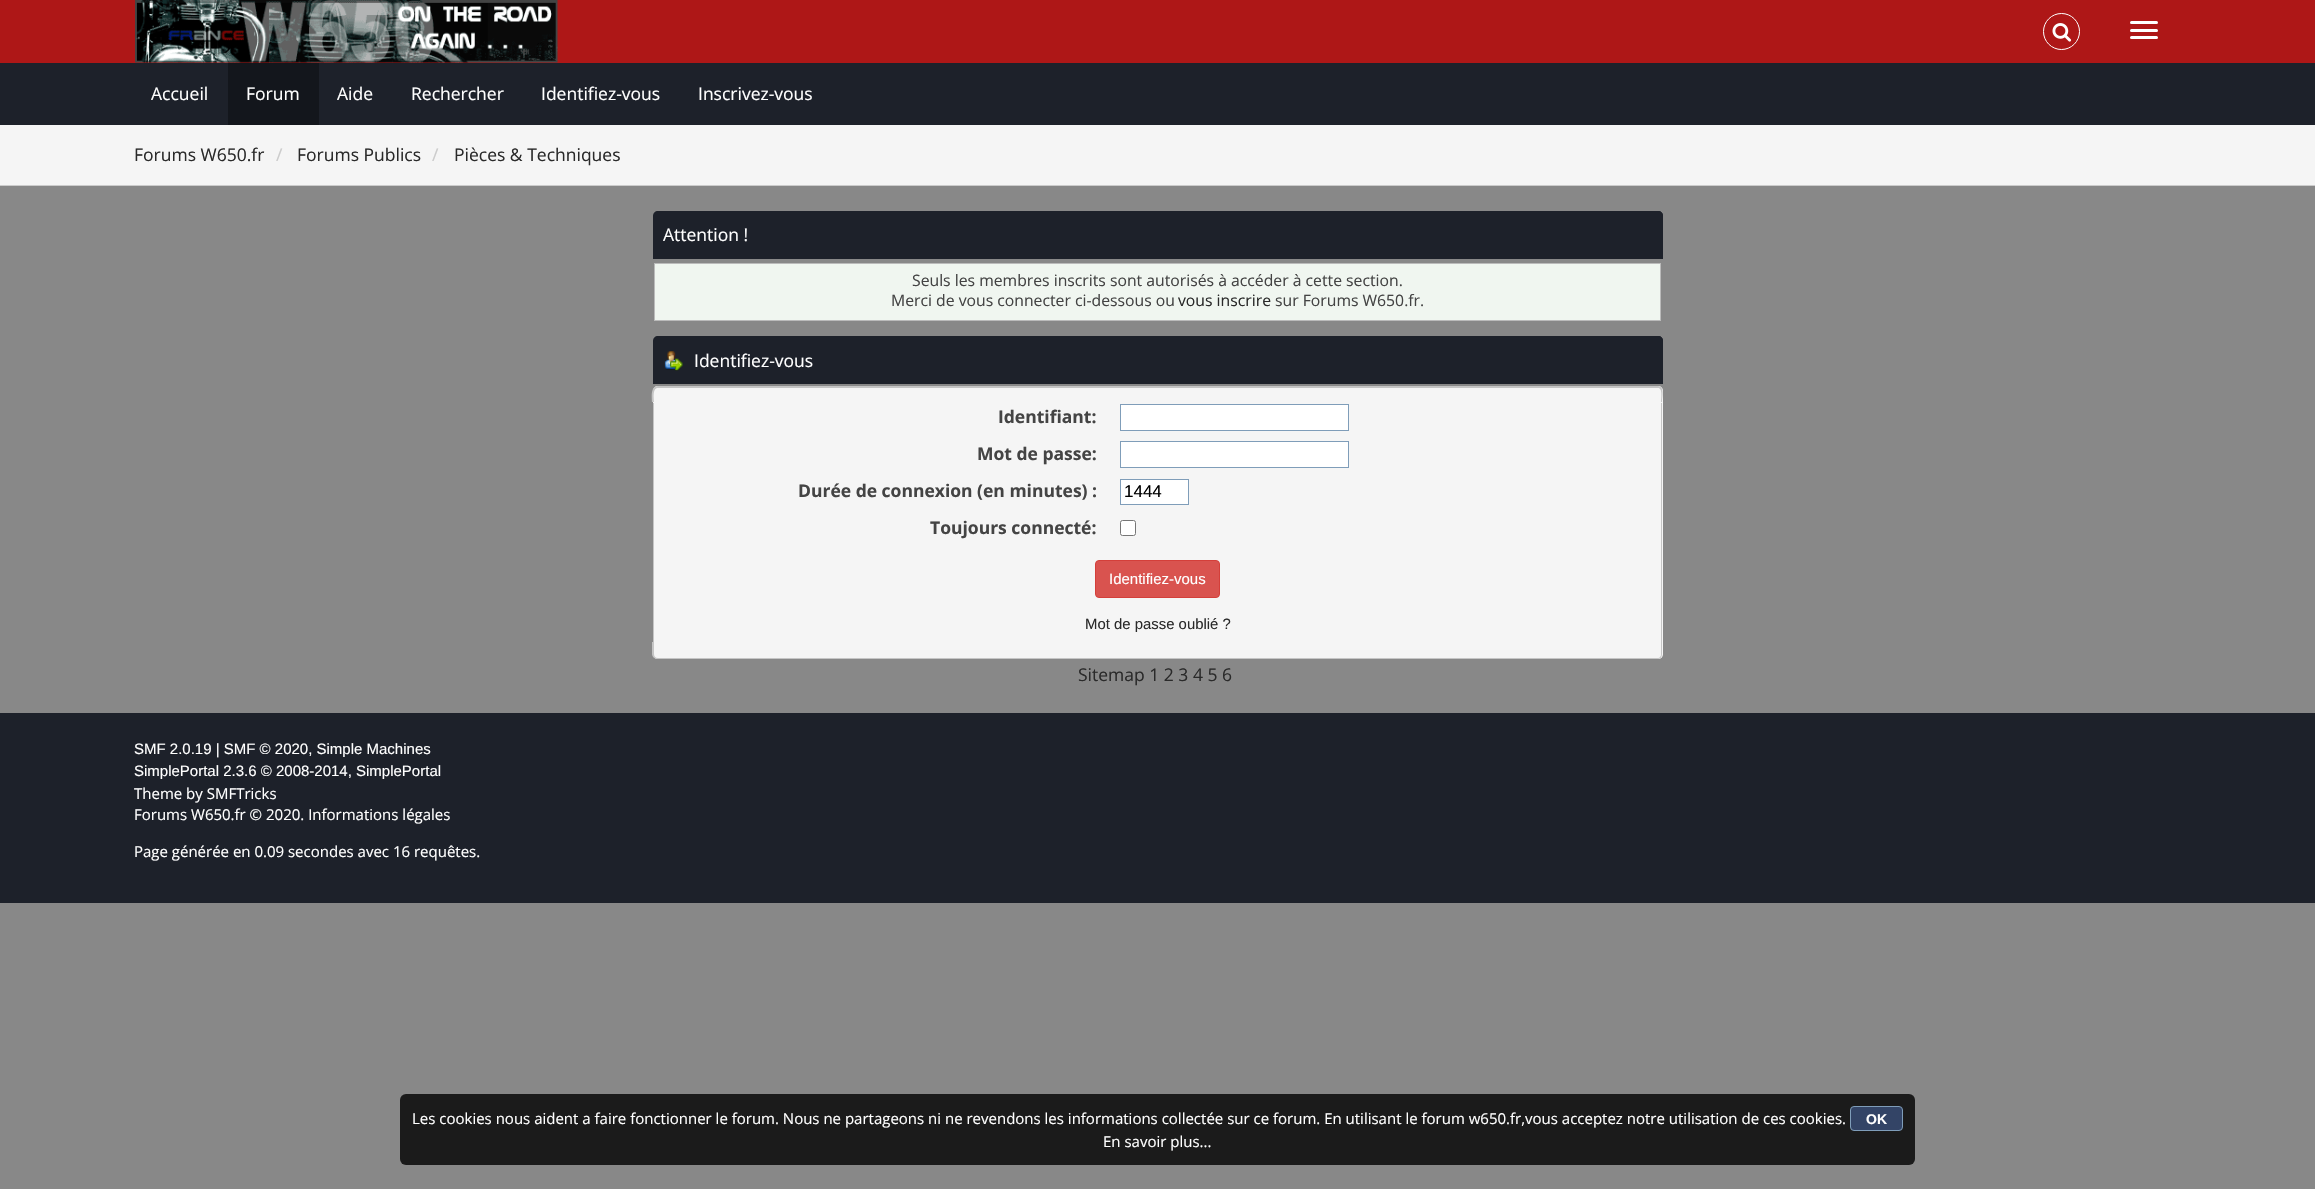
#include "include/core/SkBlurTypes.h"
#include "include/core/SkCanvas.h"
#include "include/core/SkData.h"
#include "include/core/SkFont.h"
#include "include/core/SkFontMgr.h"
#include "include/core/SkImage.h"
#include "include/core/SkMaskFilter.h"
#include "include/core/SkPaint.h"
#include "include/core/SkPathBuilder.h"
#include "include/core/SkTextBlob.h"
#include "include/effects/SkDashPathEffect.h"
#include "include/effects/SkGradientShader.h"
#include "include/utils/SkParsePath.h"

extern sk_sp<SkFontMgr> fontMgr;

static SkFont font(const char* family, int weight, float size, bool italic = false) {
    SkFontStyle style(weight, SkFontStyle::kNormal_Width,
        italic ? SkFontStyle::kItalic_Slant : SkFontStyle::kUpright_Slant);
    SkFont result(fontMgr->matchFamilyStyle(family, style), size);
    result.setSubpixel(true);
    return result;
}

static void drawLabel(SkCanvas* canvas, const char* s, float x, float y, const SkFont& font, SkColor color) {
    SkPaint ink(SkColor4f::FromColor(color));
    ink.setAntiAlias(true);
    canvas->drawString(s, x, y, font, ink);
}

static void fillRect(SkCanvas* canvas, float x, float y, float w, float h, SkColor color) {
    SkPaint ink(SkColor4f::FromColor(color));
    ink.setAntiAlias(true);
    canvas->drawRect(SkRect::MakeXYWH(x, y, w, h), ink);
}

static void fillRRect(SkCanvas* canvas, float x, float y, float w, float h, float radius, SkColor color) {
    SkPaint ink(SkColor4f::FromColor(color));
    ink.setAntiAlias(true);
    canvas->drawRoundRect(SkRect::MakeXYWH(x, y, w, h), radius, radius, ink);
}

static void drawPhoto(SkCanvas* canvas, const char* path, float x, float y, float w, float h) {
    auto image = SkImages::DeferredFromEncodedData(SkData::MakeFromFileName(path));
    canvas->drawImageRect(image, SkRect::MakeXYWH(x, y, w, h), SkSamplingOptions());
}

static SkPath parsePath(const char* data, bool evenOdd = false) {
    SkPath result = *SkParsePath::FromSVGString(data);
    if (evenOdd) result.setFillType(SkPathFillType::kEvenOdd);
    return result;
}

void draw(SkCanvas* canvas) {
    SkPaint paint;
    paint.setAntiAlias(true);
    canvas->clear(0xFF888888);
    fillRect(canvas, 0, 0, 2315, 63, 0xFFAE1717);
    drawPhoto(canvas, "assets/img1.png", 135, 0, 423, 63);
    paint.setStroke(true);
    paint.setStrokeWidth(1);
    paint.setColor(0xFFFFFFFF);
    canvas->drawCircle(2061.5f, 31.5f, 18, paint);
    drawPhoto(canvas, "assets/img2.png", 2052, 23, 20, 19);
    fillRRect(canvas, 2130, 21, 28, 3, 1.5f, 0xFFFFFFFF);
    fillRRect(canvas, 2130, 29, 28, 3, 1.5f, 0xFFFFFFFF);
    fillRRect(canvas, 2130, 36, 28, 3, 1.5f, 0xFFFFFFFF);
    fillRect(canvas, 0, 63, 2315, 62, 0xFF1D212A);
    SkFont font1 = font("Open Sans", 400, 17.5f);
    drawLabel(canvas, "Accueil", 151, 100, font1, 0xFFFFFFFF);
    fillRect(canvas, 228, 63, 91, 62, 0xFF13161C);
    drawLabel(canvas, "Forum", 246, 100, font1, 0xFFFFFFFF);
    drawLabel(canvas, "Aide", 337, 100, font1, 0xFFFFFFFF);
    drawLabel(canvas, "Rechercher", 411, 100, font1, 0xFFFFFFFF);
    drawLabel(canvas, "Identifiez-vous", 541, 100, font1, 0xFFFFFFFF);
    drawLabel(canvas, "Inscrivez-vous", 698, 100, font1, 0xFFFFFFFF);
    fillRect(canvas, 0, 125, 2315, 60, 0xFFF5F5F5);
    fillRect(canvas, 0, 185, 2315, 1, 0xFFCCCCCC);
    drawLabel(canvas, "Forums W650.fr", 134, 161, font1, 0xFF2A2A2A);
    drawLabel(canvas, "/", 276, 161, font1, 0xFFCCCCCC);
    drawLabel(canvas, "Forums Publics", 297, 161, font1, 0xFF2A2A2A);
    drawLabel(canvas, "/", 432, 161, font1, 0xFFCCCCCC);
    drawLabel(canvas, "Pièces & Techniques", 454, 161, font1, 0xFF2A2A2A);
    paint.setStroke(false);
    paint.setColor(0xFF1D212A);
    canvas->drawPath(parsePath("M658 211H1658C1661 211 1663 213 1663 216V259H653V216C653 213 655 211 658 211Z"), paint);
    canvas->drawPath(parsePath("M664 211H1658C1661 211 1663 213 1663 216V259H664Z"), paint);
    drawLabel(canvas, "Attention !", 663, 241, font1, 0xFFFFFFFF);
    paint.setColor(0xFFF0F6F0);
    canvas->drawRect(SkRect::MakeXYWH(654.5f, 263.5f, 1006, 57), paint);
    paint.setStroke(true);
    paint.setColor(0xFFBBBBBB);
    canvas->drawRect(SkRect::MakeXYWH(654.5f, 263.5f, 1006, 57), paint);
    SkFont font2 = font("Open Sans", 400, 15.75f);
    drawLabel(canvas, "Seuls les membres inscrits sont autorisés à accéder à cette section.", 912, 286, font2, 0xFF444444);
    drawLabel(canvas, "Merci de vous connecter ci-dessous ou", 891, 306, font2, 0xFF444444);
    drawLabel(canvas, "vous inscrire", 1178, 306, font2, 0xFF2A2A2A);
    drawLabel(canvas, "sur Forums W650.fr.", 1275, 306, font2, 0xFF444444);
    paint.setStroke(false);
    paint.setColor(0xFF1D212A);
    canvas->drawPath(parsePath("M658 336H1658C1661 336 1663 338 1663 341V384H653V341C653 338 655 336 658 336Z"), paint);
    canvas->drawPath(parsePath("M664 336H1658C1661 336 1663 338 1663 341V384H664Z"), paint);
    drawPhoto(canvas, "assets/img3.png", 664, 351, 19, 20);
    drawLabel(canvas, "Identifiez-vous", 694, 367, font1, 0xFFFFFFFF);
    paint.setColor(0xFFF5F5F5);
    canvas->drawPath(parsePath("M658 386H1658C1661 386 1663 388 1663 391V403H653V391C653 388 655 386 658 386Z"), paint);
    paint.setColor(0xFFC5C5C5);
    canvas->drawPath(parsePath("M658 386H1658C1665 386 1662 398 1662 402H652C652 398 650 386 658 386ZM658 388H1658C1663 388 1661 399 1661 402H654C654 399 652 388 658 388Z", true), paint);
    paint.setColor(0xFFF5F5F5);
    canvas->drawPath(parsePath("M684 388H1656C1659 388 1661 390 1661 393V403H679V393C679 390 681 388 684 388Z"), paint);
    fillRect(canvas, 654, 403, 1009, 240, 0xFFF5F5F5);
    fillRect(canvas, 1661, 403, 1, 240, 0xFFC5C5C5);
    fillRect(canvas, 653, 403, 1, 240, 0xFFC5C5C5);
    SkFont font3 = font("Open Sans", 700, 17.5f);
    drawLabel(canvas, "Identifiant:", 998, 423, font3, 0xFF444444);
    paint.setColor(0xFFFFFFFF);
    canvas->drawRect(SkRect::MakeXYWH(1120.5f, 404.5f, 228, 26), paint);
    paint.setStroke(true);
    paint.setColor(0xFF7F9DB9);
    canvas->drawRect(SkRect::MakeXYWH(1120.5f, 404.5f, 228, 26), paint);
    drawLabel(canvas, "Mot de passe:", 977, 460, font3, 0xFF444444);
    paint.setStroke(false);
    paint.setColor(0xFFFFFFFF);
    canvas->drawRect(SkRect::MakeXYWH(1120.5f, 441.5f, 228, 26), paint);
    paint.setStroke(true);
    paint.setColor(0xFF7F9DB9);
    canvas->drawRect(SkRect::MakeXYWH(1120.5f, 441.5f, 228, 26), paint);
    drawLabel(canvas, "Durée de connexion (en minutes) :", 798, 497, font3, 0xFF444444);
    paint.setStroke(false);
    paint.setColor(0xFFFFFFFF);
    canvas->drawRect(SkRect::MakeXYWH(1120.5f, 479.5f, 68, 25), paint);
    paint.setStroke(true);
    paint.setColor(0xFF7F9DB9);
    canvas->drawRect(SkRect::MakeXYWH(1120.5f, 479.5f, 68, 25), paint);
    SkFont font4 = font("Liberation Sans", 400, 17);
    drawLabel(canvas, "1444", 1124, 497, font4, 0xFF000000);
    drawLabel(canvas, "Toujours connecté:", 930, 534, font3, 0xFF444444);
    paint.setStroke(false);
    paint.setColor(0xFFFFFFFF);
    canvas->drawRoundRect(SkRect::MakeXYWH(1120.5f, 520.5f, 15, 15), 2, 2, paint);
    paint.setStroke(true);
    paint.setColor(0xFF767676);
    canvas->drawRoundRect(SkRect::MakeXYWH(1120.5f, 520.5f, 15, 15), 2, 2, paint);
    paint.setStroke(false);
    paint.setColor(0xFFD9534F);
    canvas->drawRoundRect(SkRect::MakeXYWH(1095.5f, 560.5f, 124, 37), 3.5f, 3.5f, paint);
    paint.setStroke(true);
    paint.setColor(0xFFD43F3A);
    canvas->drawRoundRect(SkRect::MakeXYWH(1095.5f, 560.5f, 124, 37), 3.5f, 3.5f, paint);
    SkFont font5 = font("Liberation Sans", 400, 15);
    drawLabel(canvas, "Identifiez-vous", 1109, 584, font5, 0xFFFFFFFF);
    SkFont font6 = font("Liberation Sans", 400, 14.9f);
    drawLabel(canvas, "Mot de passe oublié ?", 1085, 629, font6, 0xFF2A2A2A);
    paint.setStroke(false);
    paint.setColor(0xFFF5F5F5);
    canvas->drawPath(parsePath("M653 643H1663V654C1663 657 1661 659 1658 659H658C655 659 653 657 653 654Z"), paint);
    paint.setColor(0xFFC5C5C5);
    canvas->drawPath(parsePath("M652 642H1662V654C1662 657 1660 659 1658 659H658C655 659 652 657 652 654ZM654 642H1661V654C1661 656 1660 658 1658 658H658C655 658 654 656 654 654Z", true), paint);
    paint.setColor(0xFFF5F5F5);
    canvas->drawPath(parsePath("M679 643H1661V653C1661 656 1659 658 1656 658H684C681 658 679 656 679 653Z"), paint);
    drawLabel(canvas, "Sitemap 1 2 3 4 5 6", 1078, 681, font1, 0xFF2A2A2A);
    fillRect(canvas, 0, 713, 2315, 190, 0xFF1D212A);
    drawLabel(canvas, "SMF 2.0.19 | SMF © 2020, Simple Machines", 134, 754, font5, 0xFFFFFFFF);
    drawLabel(canvas, "SimplePortal 2.3.6 © 2008-2014, SimplePortal", 134, 776, font5, 0xFFFFFFFF);
    SkFont font7 = font("Open Sans", 400, 15);
    drawLabel(canvas, "Theme by SMFTricks", 134, 799, font7, 0xFFFFFFFF);
    drawLabel(canvas, "Forums W650.fr © 2020. Informations légales", 134, 820, font7, 0xFFFFFFFF);
    drawLabel(canvas, "Page générée en 0.09 secondes avec 16 requêtes.", 134, 857, font7, 0xFFFFFFFF);
    fillRRect(canvas, 400, 1094, 1515, 71, 6, 0xFF1B1B1B);
    drawLabel(canvas, "Les cookies nous aident a faire fonctionner le forum. Nous ne partageons ni ne revendons les informations collectée sur ce forum. En utilisant le forum w650.fr,vous acceptez notre utilisation de ces cookies.", 412, 1124, font7, 0xFFFFFFFF);
    paint.setColor(0xFF334466);
    canvas->drawRoundRect(SkRect::MakeXYWH(1850.5f, 1106.5f, 52, 24), 3.5f, 3.5f, paint);
    paint.setStroke(true);
    paint.setColor(0xFF7F9DB9);
    canvas->drawRoundRect(SkRect::MakeXYWH(1850.5f, 1106.5f, 52, 24), 3.5f, 3.5f, paint);
    SkFont font8 = font("Liberation Sans", 700, 14);
    drawLabel(canvas, "OK", 1866, 1124, font8, 0xFFFFFFFF);
    drawLabel(canvas, "En savoir plus...", 1103, 1147, font7, 0xFFFFFFFF);
}
